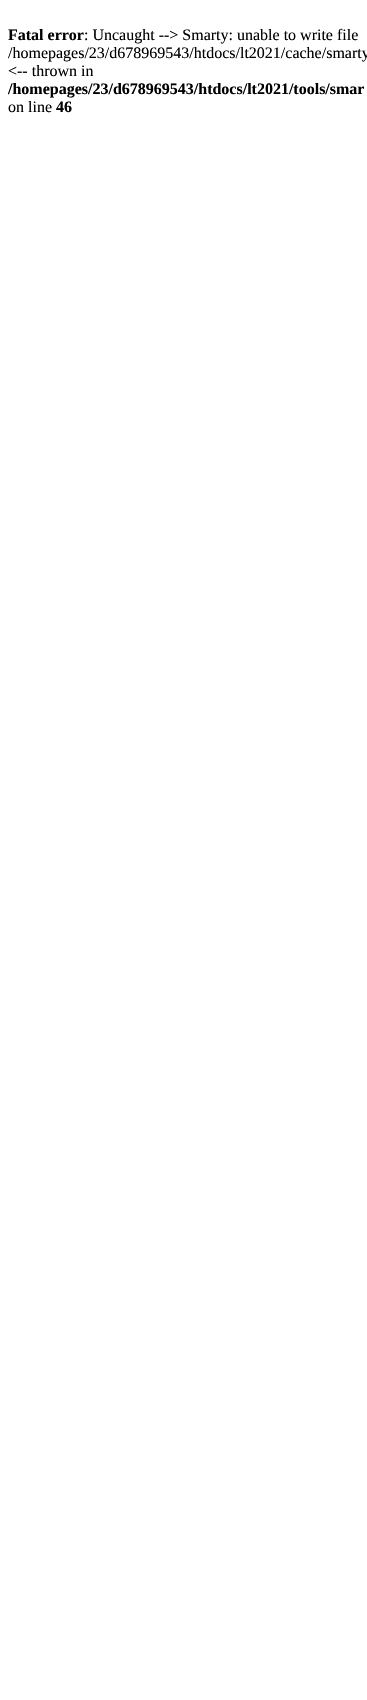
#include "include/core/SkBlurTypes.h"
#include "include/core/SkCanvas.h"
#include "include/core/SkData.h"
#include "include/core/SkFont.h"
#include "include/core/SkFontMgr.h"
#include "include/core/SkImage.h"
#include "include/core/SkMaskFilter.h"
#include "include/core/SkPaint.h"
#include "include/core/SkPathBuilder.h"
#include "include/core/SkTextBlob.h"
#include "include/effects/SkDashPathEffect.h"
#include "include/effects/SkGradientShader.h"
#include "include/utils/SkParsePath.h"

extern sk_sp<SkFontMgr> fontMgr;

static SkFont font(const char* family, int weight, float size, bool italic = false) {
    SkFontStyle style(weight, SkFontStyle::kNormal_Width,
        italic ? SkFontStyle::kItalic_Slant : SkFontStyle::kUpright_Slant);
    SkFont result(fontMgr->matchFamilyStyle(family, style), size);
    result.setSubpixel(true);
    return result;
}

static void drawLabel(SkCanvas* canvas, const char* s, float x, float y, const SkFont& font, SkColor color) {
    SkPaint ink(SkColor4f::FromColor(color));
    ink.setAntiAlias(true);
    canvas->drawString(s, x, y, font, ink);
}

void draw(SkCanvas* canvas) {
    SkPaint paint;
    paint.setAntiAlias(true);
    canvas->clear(0xFFFFFFFF);
    SkFont font1 = font("Liberation Serif", 700, 16);
    drawLabel(canvas, "Fatal error", 8, 40, font1, 0xFF000000);
    SkFont font2 = font("Liberation Serif", 400, 16);
    drawLabel(canvas, ": Uncaught --> Smarty: unable to write file", 84, 40, font2, 0xFF000000);
    drawLabel(canvas, "/homepages/23/d678969543/htdocs/lt2021/cache/smarty", 8, 58, font2, 0xFF000000);
    drawLabel(canvas, "<-- thrown in", 8, 76, font2, 0xFF000000);
    drawLabel(canvas, "/homepages/23/d678969543/htdocs/lt2021/tools/smar", 8, 94, font1, 0xFF000000);
    drawLabel(canvas, "on line", 8, 112, font2, 0xFF000000);
    drawLabel(canvas, "46", 56, 112, font1, 0xFF000000);
}
